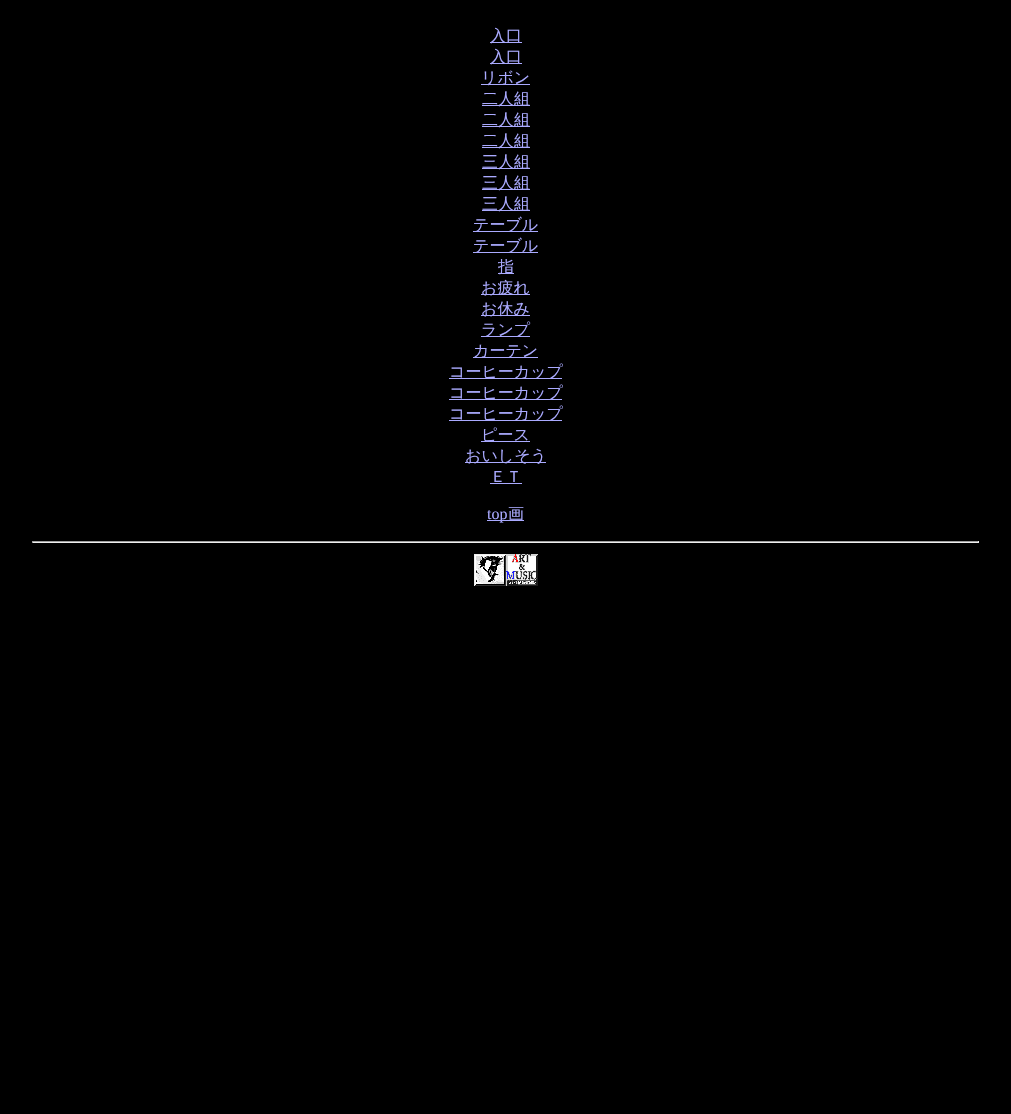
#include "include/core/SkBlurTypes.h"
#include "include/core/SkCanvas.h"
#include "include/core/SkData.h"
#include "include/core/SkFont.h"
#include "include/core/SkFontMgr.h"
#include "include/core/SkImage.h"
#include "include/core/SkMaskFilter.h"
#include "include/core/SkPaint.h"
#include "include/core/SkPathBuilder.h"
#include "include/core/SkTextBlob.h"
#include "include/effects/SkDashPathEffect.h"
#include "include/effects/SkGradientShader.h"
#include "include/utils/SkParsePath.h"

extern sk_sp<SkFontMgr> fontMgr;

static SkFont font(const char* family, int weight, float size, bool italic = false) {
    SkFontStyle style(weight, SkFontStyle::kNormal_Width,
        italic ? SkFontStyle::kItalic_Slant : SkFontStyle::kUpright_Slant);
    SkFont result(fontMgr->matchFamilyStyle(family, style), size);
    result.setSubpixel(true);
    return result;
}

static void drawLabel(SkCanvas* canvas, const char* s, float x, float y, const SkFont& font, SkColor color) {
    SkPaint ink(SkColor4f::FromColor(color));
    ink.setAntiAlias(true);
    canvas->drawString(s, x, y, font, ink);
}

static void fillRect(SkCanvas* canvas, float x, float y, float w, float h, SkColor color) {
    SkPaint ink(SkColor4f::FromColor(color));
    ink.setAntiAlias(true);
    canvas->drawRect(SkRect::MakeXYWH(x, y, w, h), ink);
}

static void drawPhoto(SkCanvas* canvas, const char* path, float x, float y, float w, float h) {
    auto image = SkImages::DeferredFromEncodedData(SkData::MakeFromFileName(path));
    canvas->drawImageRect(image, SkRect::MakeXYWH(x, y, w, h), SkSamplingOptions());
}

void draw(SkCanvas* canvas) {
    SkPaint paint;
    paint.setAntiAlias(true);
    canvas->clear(0xFF000000);
    fillRect(canvas, 490, 42, 32, 1, 0xFFAAAAFF);
    SkFont font1 = font("WenQuanYi Zen Hei", 500, 16);
    drawLabel(canvas, "入口", 490, 41, font1, 0xFFAAAAFF);
    fillRect(canvas, 490, 63, 32, 1, 0xFFAAAAFF);
    drawLabel(canvas, "入口", 490, 62, font1, 0xFFAAAAFF);
    fillRect(canvas, 481, 84, 49, 1, 0xFFAAAAFF);
    drawLabel(canvas, "リボン", 481, 83, font1, 0xFFAAAAFF);
    fillRect(canvas, 482, 105, 48, 1, 0xFFAAAAFF);
    drawLabel(canvas, "二人組", 482, 104, font1, 0xFFAAAAFF);
    fillRect(canvas, 482, 126, 48, 1, 0xFFAAAAFF);
    drawLabel(canvas, "二人組", 482, 125, font1, 0xFFAAAAFF);
    fillRect(canvas, 482, 147, 48, 1, 0xFFAAAAFF);
    drawLabel(canvas, "二人組", 482, 146, font1, 0xFFAAAAFF);
    fillRect(canvas, 482, 168, 48, 1, 0xFFAAAAFF);
    drawLabel(canvas, "三人組", 482, 167, font1, 0xFFAAAAFF);
    fillRect(canvas, 482, 189, 48, 1, 0xFFAAAAFF);
    drawLabel(canvas, "三人組", 482, 188, font1, 0xFFAAAAFF);
    fillRect(canvas, 482, 210, 48, 1, 0xFFAAAAFF);
    drawLabel(canvas, "三人組", 482, 209, font1, 0xFFAAAAFF);
    fillRect(canvas, 473, 231, 65, 1, 0xFFAAAAFF);
    drawLabel(canvas, "テーブル", 473, 230, font1, 0xFFAAAAFF);
    fillRect(canvas, 473, 252, 65, 1, 0xFFAAAAFF);
    drawLabel(canvas, "テーブル", 473, 251, font1, 0xFFAAAAFF);
    fillRect(canvas, 498, 273, 16, 1, 0xFFAAAAFF);
    drawLabel(canvas, "指", 498, 272, font1, 0xFFAAAAFF);
    fillRect(canvas, 481, 294, 49, 1, 0xFFAAAAFF);
    drawLabel(canvas, "お疲れ", 481, 293, font1, 0xFFAAAAFF);
    fillRect(canvas, 481, 315, 49, 1, 0xFFAAAAFF);
    drawLabel(canvas, "お休み", 481, 314, font1, 0xFFAAAAFF);
    fillRect(canvas, 481, 336, 49, 1, 0xFFAAAAFF);
    drawLabel(canvas, "ランプ", 481, 335, font1, 0xFFAAAAFF);
    fillRect(canvas, 473, 357, 65, 1, 0xFFAAAAFF);
    drawLabel(canvas, "カーテン", 473, 356, font1, 0xFFAAAAFF);
    fillRect(canvas, 449, 378, 113, 1, 0xFFAAAAFF);
    drawLabel(canvas, "コーヒーカップ", 449, 377, font1, 0xFFAAAAFF);
    fillRect(canvas, 449, 399, 113, 1, 0xFFAAAAFF);
    drawLabel(canvas, "コーヒーカップ", 449, 398, font1, 0xFFAAAAFF);
    fillRect(canvas, 449, 420, 113, 1, 0xFFAAAAFF);
    drawLabel(canvas, "コーヒーカップ", 449, 419, font1, 0xFFAAAAFF);
    fillRect(canvas, 481, 441, 49, 1, 0xFFAAAAFF);
    drawLabel(canvas, "ピース", 481, 440, font1, 0xFFAAAAFF);
    fillRect(canvas, 465, 462, 81, 1, 0xFFAAAAFF);
    drawLabel(canvas, "おいしそう", 465, 461, font1, 0xFFAAAAFF);
    drawLabel(canvas, "ＥＴ", 490, 482, font1, 0xFFAAAAFF);
    fillRect(canvas, 490, 483, 32, 1, 0xFFAAAAFF);
    fillRect(canvas, 487, 520, 37, 1, 0xFFAAAAFF);
    SkFont font2 = font("Liberation Serif", 400, 16);
    drawLabel(canvas, "top", 487, 519, font2, 0xFFAAAAFF);
    drawLabel(canvas, "画", 508, 519, font1, 0xFFAAAAFF);
    fillRect(canvas, 32, 541, 947, 1, 0xFF9F9F9F);
    fillRect(canvas, 978, 541, 1, 2, 0xFFEEEEEE);
    fillRect(canvas, 32, 542, 947, 1, 0xFFEEEEEE);
    fillRect(canvas, 32, 541, 1, 2, 0xFF9F9F9F);
    drawPhoto(canvas, "assets/img1.png", 474, 554, 32, 32);
    drawPhoto(canvas, "assets/img2.png", 506, 554, 32, 32);
}
